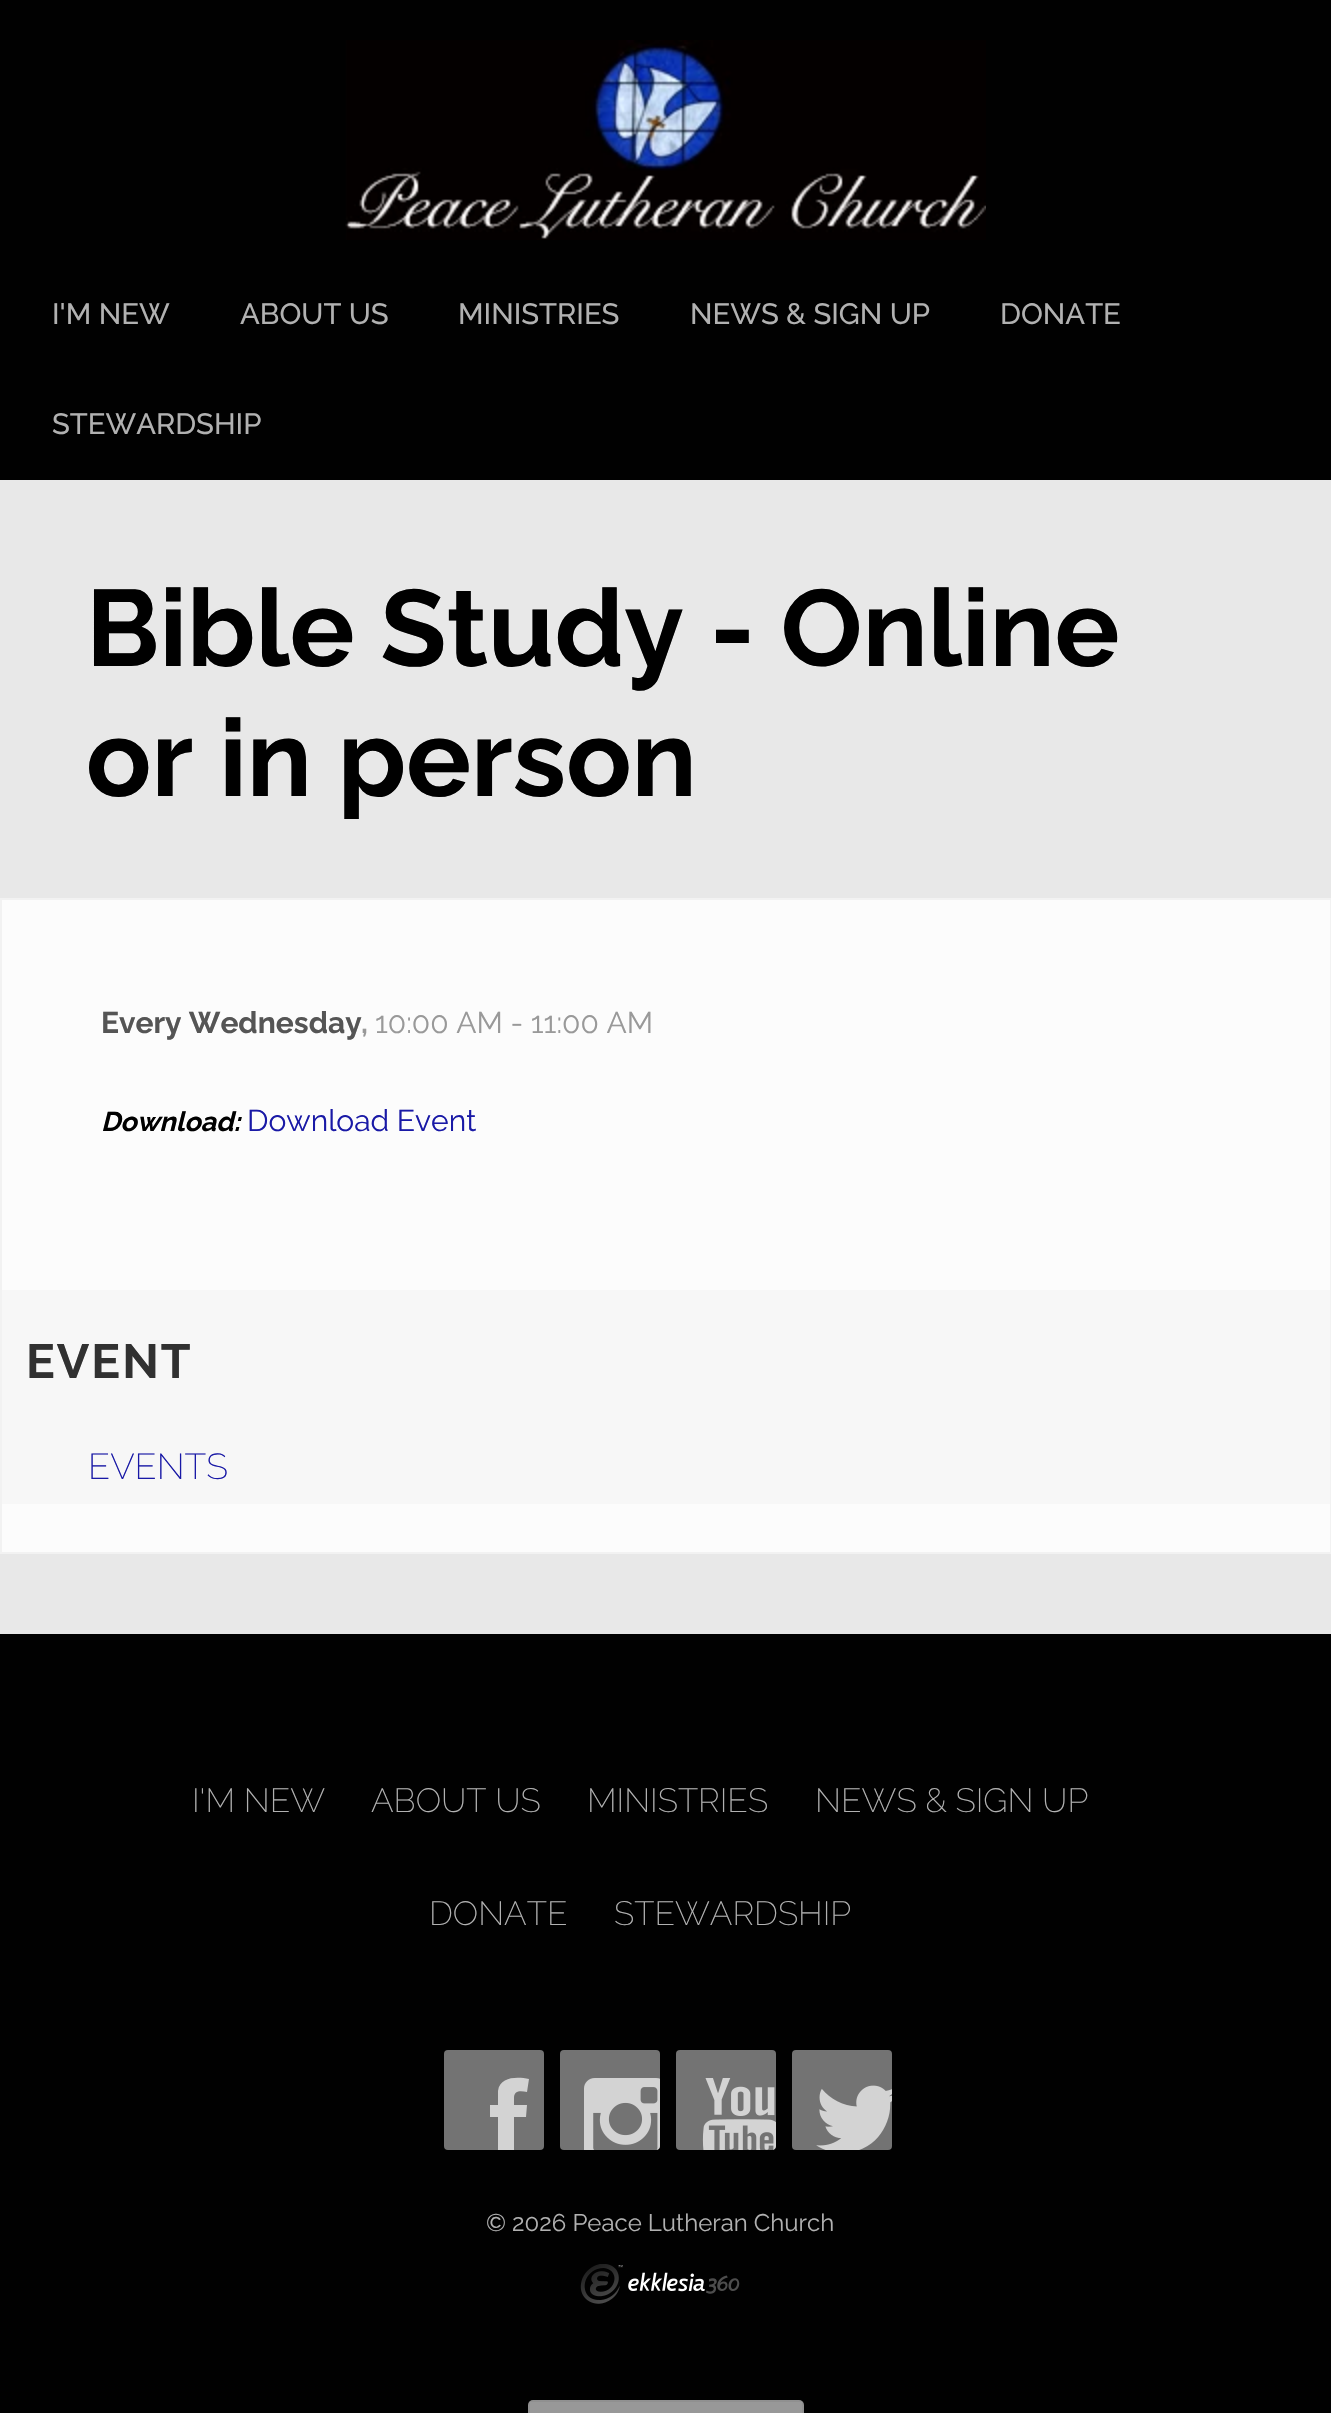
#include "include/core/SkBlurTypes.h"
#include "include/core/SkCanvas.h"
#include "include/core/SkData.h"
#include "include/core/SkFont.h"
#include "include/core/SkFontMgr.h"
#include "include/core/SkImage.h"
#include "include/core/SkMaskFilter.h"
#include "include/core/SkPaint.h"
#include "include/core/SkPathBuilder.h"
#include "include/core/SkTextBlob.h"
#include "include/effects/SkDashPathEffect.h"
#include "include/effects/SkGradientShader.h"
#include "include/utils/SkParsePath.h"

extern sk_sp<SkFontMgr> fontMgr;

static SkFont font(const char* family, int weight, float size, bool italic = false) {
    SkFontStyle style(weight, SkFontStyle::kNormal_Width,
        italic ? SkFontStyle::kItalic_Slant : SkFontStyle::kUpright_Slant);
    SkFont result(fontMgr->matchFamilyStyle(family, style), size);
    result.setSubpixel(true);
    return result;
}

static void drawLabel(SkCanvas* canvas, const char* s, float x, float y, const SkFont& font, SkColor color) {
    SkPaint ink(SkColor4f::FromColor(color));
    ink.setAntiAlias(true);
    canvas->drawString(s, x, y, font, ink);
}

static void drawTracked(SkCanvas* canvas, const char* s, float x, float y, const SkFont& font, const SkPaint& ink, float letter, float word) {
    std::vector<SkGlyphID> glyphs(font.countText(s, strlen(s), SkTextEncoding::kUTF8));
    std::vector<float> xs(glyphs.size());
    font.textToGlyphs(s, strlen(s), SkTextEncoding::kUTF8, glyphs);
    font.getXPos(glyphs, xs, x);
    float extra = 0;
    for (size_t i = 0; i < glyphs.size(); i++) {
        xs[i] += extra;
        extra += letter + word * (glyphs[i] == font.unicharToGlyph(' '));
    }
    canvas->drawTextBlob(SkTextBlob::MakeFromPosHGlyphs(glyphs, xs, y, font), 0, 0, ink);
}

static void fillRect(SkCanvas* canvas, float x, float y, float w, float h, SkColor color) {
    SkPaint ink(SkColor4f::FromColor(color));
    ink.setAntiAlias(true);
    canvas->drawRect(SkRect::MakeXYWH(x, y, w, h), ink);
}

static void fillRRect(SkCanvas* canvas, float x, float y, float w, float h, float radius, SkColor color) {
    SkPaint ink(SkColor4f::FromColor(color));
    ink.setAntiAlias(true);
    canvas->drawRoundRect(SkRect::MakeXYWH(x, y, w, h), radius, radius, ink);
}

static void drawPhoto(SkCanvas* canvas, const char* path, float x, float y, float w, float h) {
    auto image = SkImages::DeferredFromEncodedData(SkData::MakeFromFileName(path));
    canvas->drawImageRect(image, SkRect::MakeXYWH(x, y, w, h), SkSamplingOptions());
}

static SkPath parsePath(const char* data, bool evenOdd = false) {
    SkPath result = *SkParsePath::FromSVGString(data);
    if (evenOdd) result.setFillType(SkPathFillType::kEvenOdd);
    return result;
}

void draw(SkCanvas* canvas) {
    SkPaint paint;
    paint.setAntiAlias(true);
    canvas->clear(0xFFE8E8E8);
    fillRect(canvas, 0, 0, 1331, 480, 0xFF010101);
    drawPhoto(canvas, "assets/img1.png", 345, 40, 641, 200);
    SkFont font1 = font("Raleway", 500, 29.25f);
    drawLabel(canvas, "I'M NEW", 52, 324, font1, 0xFFB1B1B1);
    drawLabel(canvas, "ABOUT US", 240, 324, font1, 0xFFB1B1B1);
    drawLabel(canvas, "MINISTRIES", 458, 324, font1, 0xFFB1B1B1);
    drawLabel(canvas, "NEWS & SIGN UP", 690, 324, font1, 0xFFB1B1B1);
    drawLabel(canvas, "DONATE", 1000, 324, font1, 0xFFB1B1B1);
    drawLabel(canvas, "STEWARDSHIP", 52, 434, font1, 0xFFB1B1B1);
    SkFont font2 = font("Raleway", 700, 108);
    drawLabel(canvas, "Bible Study - Online", 86, 666, font2, 0xFF000000);
    drawLabel(canvas, "or in person", 86, 796, font2, 0xFF000000);
    paint.setColor(0xFFFCFCFC);
    canvas->drawRect(SkRect::MakeXYWH(1, 899, 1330, 654), paint);
    paint.setStroke(true);
    paint.setStrokeWidth(2);
    paint.setColor(0xFFF2F2F2);
    canvas->drawRect(SkRect::MakeXYWH(1, 899, 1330, 654), paint);
    SkFont font3 = font("Raleway", 700, 30);
    drawLabel(canvas, "Every Wednesday", 101, 1033, font3, 0xFF555555);
    drawLabel(canvas, ",", 361, 1033, font3, 0xFF999999);
    SkFont font4 = font("Raleway", 100, 30);
    drawLabel(canvas, "10:00 AM - 11:00 AM", 375, 1033, font4, 0xFF999999);
    SkFont font5 = font("Raleway", 700, 27, true);
    drawLabel(canvas, "Download:", 101, 1131, font5, 0xFF000000);
    drawLabel(canvas, "Download Event", 247, 1131, font4, 0xFF1919A6);
    fillRect(canvas, 2, 1290, 1328, 214, 0xFFF7F7F7);
    SkFont font6 = font("Raleway", 700, 48);
    paint.setStroke(false);
    paint.setColor(0xFF313131);
    drawTracked(canvas, "EVENT", 26, 1378, font6, paint, 2, 0);
    SkFont font7 = font("Raleway", 200, 36);
    drawLabel(canvas, "EVENTS", 88, 1479, font7, 0xFF1919A6);
    fillRect(canvas, 0, 1634, 1331, 779, 0xFF010101);
    SkFont font8 = font("Raleway", 200, 33.5f);
    drawLabel(canvas, "I'M NEW", 192, 1812, font8, 0xFFB1B1B1);
    drawLabel(canvas, "ABOUT US", 371, 1812, font8, 0xFFB1B1B1);
    drawLabel(canvas, "MINISTRIES", 587, 1812, font8, 0xFFB1B1B1);
    drawLabel(canvas, "NEWS & SIGN UP", 815, 1812, font8, 0xFFB1B1B1);
    drawLabel(canvas, "DONATE", 429, 1925, font8, 0xFFB1B1B1);
    drawLabel(canvas, "STEWARDSHIP", 614, 1925, font8, 0xFFB1B1B1);
    fillRRect(canvas, 444, 2050, 100, 100, 4, 0xFF737373);
    paint.setColor(0xFFD3D3D3);
    canvas->drawPath(parsePath("M514 2098V2105H527L526 2117H514V2150H498V2117H490V2105H498V2091C500 2076 518 2077 529 2079L527 2092C521 2091 514 2090 514 2098Z"), paint);
    fillRRect(canvas, 560, 2050, 100, 100, 4, 0xFF737373);
    drawPhoto(canvas, "assets/img2.png", 584, 2078, 76, 72);
    fillRRect(canvas, 676, 2050, 100, 100, 4, 0xFF737373);
    drawPhoto(canvas, "assets/img3.png", 702, 2078, 74, 72);
    fillRRect(canvas, 792, 2050, 100, 100, 4, 0xFF737373);
    drawPhoto(canvas, "assets/img4.png", 816, 2085, 76, 65);
    SkFont font9 = font("Raleway", 100, 24);
    drawLabel(canvas, "© 2026 Peace Lutheran Church", 486, 2231, font9, 0xFFB1B1B1);
    drawPhoto(canvas, "assets/img5.png", 580, 2264, 160, 40);
    fillRRect(canvas, 528, 2400, 276, 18, 5, 0xFF989898);
    paint.setStroke(true);
    paint.setColor(0x0D000000);
    canvas->drawRect(SkRect::MakeXYWH(529, 2401, 274, 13), paint);
}
